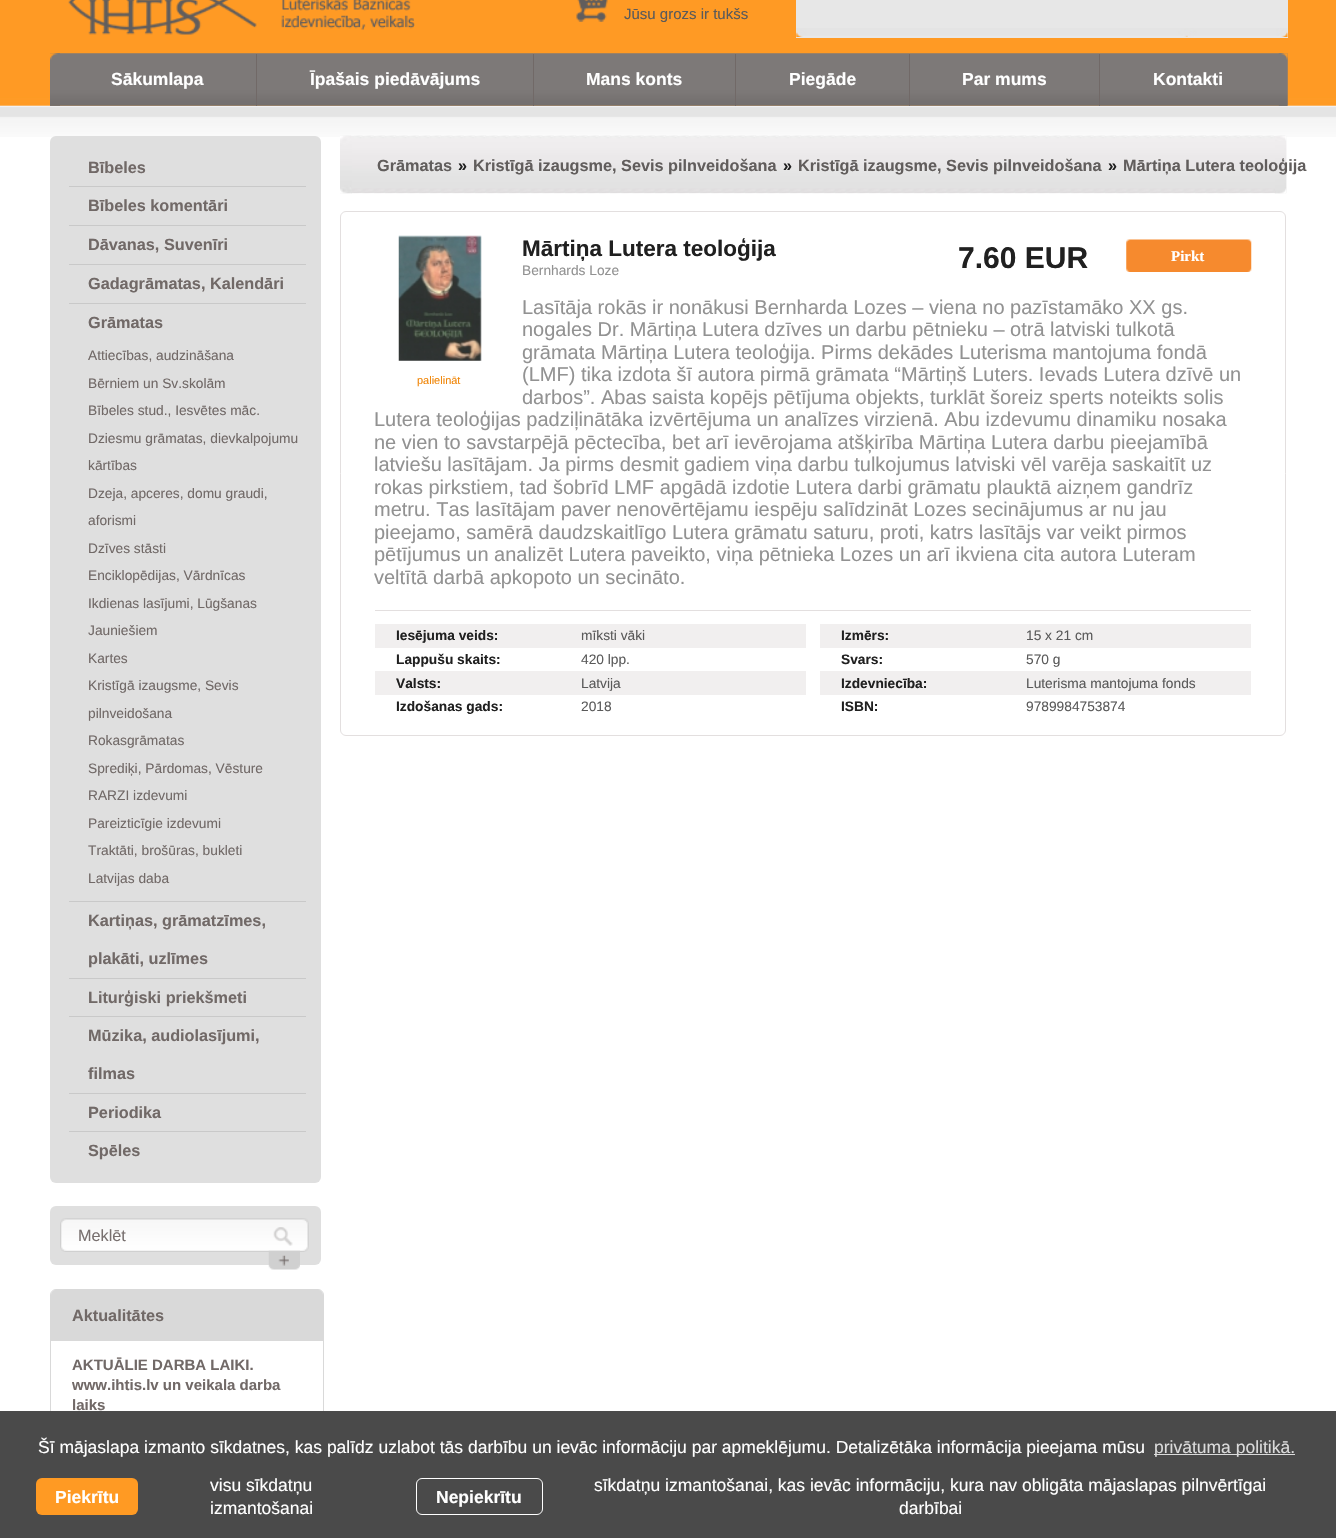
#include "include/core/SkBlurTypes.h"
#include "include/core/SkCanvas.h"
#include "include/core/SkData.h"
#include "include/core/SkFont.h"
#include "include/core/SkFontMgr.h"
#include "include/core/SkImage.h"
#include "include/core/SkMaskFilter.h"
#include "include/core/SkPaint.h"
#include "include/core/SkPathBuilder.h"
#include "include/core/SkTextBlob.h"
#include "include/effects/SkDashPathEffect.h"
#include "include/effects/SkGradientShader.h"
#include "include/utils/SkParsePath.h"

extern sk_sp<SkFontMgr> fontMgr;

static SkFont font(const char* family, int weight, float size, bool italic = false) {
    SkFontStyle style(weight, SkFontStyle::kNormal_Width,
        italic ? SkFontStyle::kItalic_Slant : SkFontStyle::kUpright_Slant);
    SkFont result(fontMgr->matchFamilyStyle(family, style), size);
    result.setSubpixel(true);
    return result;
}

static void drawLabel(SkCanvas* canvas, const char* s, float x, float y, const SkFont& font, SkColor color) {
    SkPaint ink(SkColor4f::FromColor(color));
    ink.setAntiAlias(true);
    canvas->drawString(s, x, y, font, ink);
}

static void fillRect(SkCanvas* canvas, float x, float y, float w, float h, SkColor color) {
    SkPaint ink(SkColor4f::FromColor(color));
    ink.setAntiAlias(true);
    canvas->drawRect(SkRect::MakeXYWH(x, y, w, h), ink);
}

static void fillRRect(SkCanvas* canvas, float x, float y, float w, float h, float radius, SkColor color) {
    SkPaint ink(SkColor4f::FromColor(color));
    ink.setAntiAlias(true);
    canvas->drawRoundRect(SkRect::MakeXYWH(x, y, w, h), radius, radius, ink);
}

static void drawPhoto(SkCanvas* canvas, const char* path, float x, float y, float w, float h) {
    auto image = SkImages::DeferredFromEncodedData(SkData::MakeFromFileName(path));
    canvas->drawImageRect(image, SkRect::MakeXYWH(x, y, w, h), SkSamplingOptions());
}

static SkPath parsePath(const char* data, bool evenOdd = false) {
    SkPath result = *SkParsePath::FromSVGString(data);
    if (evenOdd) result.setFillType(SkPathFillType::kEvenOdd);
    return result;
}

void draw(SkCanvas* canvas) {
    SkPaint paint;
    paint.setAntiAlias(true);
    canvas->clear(0xFFFFFFFF);
    drawPhoto(canvas, "assets/img1.png", 0, 0, 1336, 137);
    drawPhoto(canvas, "assets/img2.png", 68, 0, 347, 35);
    drawPhoto(canvas, "assets/img3.png", 576, 0, 32, 22);
    SkFont font1 = font("Liberation Sans", 400, 15);
    drawLabel(canvas, "Jūsu grozs ir tukšs", 624, 19, font1, 0xFF5A5A5A);
    fillRect(canvas, 796, 0, 492, 38, 0xFFE7E7E7);
    drawPhoto(canvas, "assets/img4.png", 796, 28, 492, 9);
    drawPhoto(canvas, "assets/img5.png", 50, 53, 1238, 53);
    drawPhoto(canvas, "assets/img6.png", 50, 53, 10, 53);
    drawPhoto(canvas, "assets/img7.png", 1278, 53, 10, 53);
    fillRect(canvas, 256, 54, 1, 52, 0xFF716967);
    SkFont font2 = font("Liberation Sans", 700, 17.5f);
    drawLabel(canvas, "Sākumlapa", 111, 85, font2, 0xFFFFFFFF);
    fillRect(canvas, 533, 54, 1, 52, 0xFF716967);
    drawLabel(canvas, "Īpašais piedāvājums", 310, 85, font2, 0xFFFFFFFF);
    fillRect(canvas, 735, 54, 1, 52, 0xFF716967);
    drawLabel(canvas, "Mans konts", 586, 85, font2, 0xFFFFFFFF);
    fillRect(canvas, 909, 54, 1, 52, 0xFF716967);
    drawLabel(canvas, "Piegāde", 789, 85, font2, 0xFFFFFFFF);
    fillRect(canvas, 1099, 54, 1, 52, 0xFF716967);
    drawLabel(canvas, "Par mums", 962, 85, font2, 0xFFFFFFFF);
    drawLabel(canvas, "Kontakti", 1153, 85, font2, 0xFFFFFFFF);
    fillRRect(canvas, 50, 136, 271, 1047, 6, 0xFFDFDFDF);
    fillRect(canvas, 69, 186, 237, 1, 0xFFC9C9C9);
    SkFont font3 = font("Liberation Sans", 700, 16.25f);
    drawLabel(canvas, "Bībeles", 88, 173, font3, 0xFF716967);
    fillRect(canvas, 69, 225, 237, 1, 0xFFC9C9C9);
    drawLabel(canvas, "Bībeles komentāri", 88, 211, font3, 0xFF716967);
    fillRect(canvas, 69, 264, 237, 1, 0xFFC9C9C9);
    drawLabel(canvas, "Dāvanas, Suvenīri", 88, 250, font3, 0xFF716967);
    fillRect(canvas, 69, 303, 237, 1, 0xFFC9C9C9);
    drawLabel(canvas, "Gadagrāmatas, Kalendāri", 88, 289, font3, 0xFF716967);
    fillRect(canvas, 69, 901, 237, 1, 0xFFC9C9C9);
    drawLabel(canvas, "Grāmatas", 88, 328, font3, 0xFF716967);
    SkFont font4 = font("Liberation Sans", 400, 13.75f);
    drawLabel(canvas, "Attiecības, audzināšana", 88, 360, font4, 0xFF716967);
    drawLabel(canvas, "Bērniem un Sv.skolām", 88, 388, font4, 0xFF716967);
    drawLabel(canvas, "Bībeles stud., Iesvētes māc.", 88, 415, font4, 0xFF716967);
    drawLabel(canvas, "Dziesmu grāmatas, dievkalpojumu", 88, 443, font4, 0xFF716967);
    drawLabel(canvas, "kārtības", 88, 470, font4, 0xFF716967);
    drawLabel(canvas, "Dzeja, apceres, domu graudi,", 88, 498, font4, 0xFF716967);
    drawLabel(canvas, "aforismi", 88, 525, font4, 0xFF716967);
    drawLabel(canvas, "Dzīves stāsti", 88, 553, font4, 0xFF716967);
    drawLabel(canvas, "Enciklopēdijas, Vārdnīcas", 88, 580, font4, 0xFF716967);
    drawLabel(canvas, "Ikdienas lasījumi, Lūgšanas", 88, 608, font4, 0xFF716967);
    drawLabel(canvas, "Jauniešiem", 88, 635, font4, 0xFF716967);
    drawLabel(canvas, "Kartes", 88, 663, font4, 0xFF716967);
    drawLabel(canvas, "Kristīgā izaugsme, Sevis", 88, 690, font4, 0xFF716967);
    drawLabel(canvas, "pilnveidošana", 88, 718, font4, 0xFF716967);
    drawLabel(canvas, "Rokasgrāmatas", 88, 745, font4, 0xFF716967);
    drawLabel(canvas, "Sprediķi, Pārdomas, Vēsture", 88, 773, font4, 0xFF716967);
    drawLabel(canvas, "RARZI izdevumi", 88, 800, font4, 0xFF716967);
    drawLabel(canvas, "Pareizticīgie izdevumi", 88, 828, font4, 0xFF716967);
    drawLabel(canvas, "Traktāti, brošūras, bukleti", 88, 855, font4, 0xFF716967);
    drawLabel(canvas, "Latvijas daba", 88, 883, font4, 0xFF716967);
    fillRect(canvas, 69, 978, 237, 1, 0xFFC9C9C9);
    drawLabel(canvas, "Kartiņas, grāmatzīmes,", 88, 926, font3, 0xFF716967);
    drawLabel(canvas, "plakāti, uzlīmes", 88, 964, font3, 0xFF716967);
    fillRect(canvas, 69, 1016, 237, 1, 0xFFC9C9C9);
    drawLabel(canvas, "Liturģiski priekšmeti", 88, 1003, font3, 0xFF716967);
    fillRect(canvas, 69, 1093, 237, 1, 0xFFC9C9C9);
    drawLabel(canvas, "Mūzika, audiolasījumi,", 88, 1041, font3, 0xFF716967);
    drawLabel(canvas, "filmas", 88, 1079, font3, 0xFF716967);
    fillRect(canvas, 69, 1131, 237, 1, 0xFFC9C9C9);
    drawLabel(canvas, "Periodika", 88, 1118, font3, 0xFF716967);
    drawLabel(canvas, "Spēles", 88, 1156, font3, 0xFF716967);
    fillRRect(canvas, 50, 1206, 271, 59, 6, 0xFFDFDFDF);
    drawPhoto(canvas, "assets/img8.png", 60, 1218, 249, 34);
    SkFont font5 = font("Liberation Sans", 400, 16.25f);
    drawLabel(canvas, "Meklēt", 78, 1241, font5, 0xFF78706F);
    drawPhoto(canvas, "assets/img9.png", 273, 1227, 20, 19);
    drawPhoto(canvas, "assets/img10.png", 268, 1250, 32, 20);
    paint.setStroke(true);
    paint.setStrokeWidth(1);
    paint.setColor(0xFFD9D9D9);
    canvas->drawRoundRect(SkRect::MakeXYWH(50.5f, 1289.5f, 273, 166), 5.5f, 5.5f, paint);
    paint.setStroke(false);
    canvas->drawPath(parsePath("M56 1290H318C321 1290 323 1292 323 1295V1341H51V1295C51 1292 53 1290 56 1290Z"), paint);
    drawLabel(canvas, "Aktualitātes", 72, 1321, font3, 0xFF716967);
    SkFont font6 = font("Liberation Sans", 700, 15);
    drawLabel(canvas, "AKTUĀLIE DARBA LAIKI.", 72, 1370, font6, 0xFF716967);
    drawLabel(canvas, "www.ihtis.lv un veikala darba", 72, 1390, font6, 0xFF716967);
    drawLabel(canvas, "laiks", 72, 1410, font6, 0xFF716967);
    drawPhoto(canvas, "assets/img11.png", 340, 135, 947, 59);
    drawPhoto(canvas, "assets/img12.png", 340, 136, 12, 58);
    drawPhoto(canvas, "assets/img13.png", 1275, 136, 12, 58);
    drawLabel(canvas, "Grāmatas", 377, 171, font3, 0xFF615D5C);
    drawLabel(canvas, "»", 458, 171, font3, 0xFF202020);
    drawLabel(canvas, "Kristīgā izaugsme, Sevis pilnveidošana", 473, 171, font3, 0xFF615D5C);
    drawLabel(canvas, "»", 783, 171, font3, 0xFF202020);
    drawLabel(canvas, "Kristīgā izaugsme, Sevis pilnveidošana", 798, 171, font3, 0xFF615D5C);
    drawLabel(canvas, "»", 1108, 171, font3, 0xFF202020);
    drawLabel(canvas, "Mārtiņa Lutera teoloģija", 1123, 171, font3, 0xFF615D5C);
    paint.setStroke(true);
    paint.setColor(0xFFE3DFDF);
    canvas->drawRoundRect(SkRect::MakeXYWH(340.5f, 211.5f, 945, 524), 5.5f, 5.5f, paint);
    SkFont font7 = font("Liberation Sans", 700, 22.5f);
    drawLabel(canvas, "Mārtiņa Lutera teoloģija", 522, 256, font7, 0xFF202020);
    drawLabel(canvas, "Bernhards Loze", 522, 275, font4, 0xFF929292);
    SkFont font8 = font("Liberation Sans", 700, 30);
    drawLabel(canvas, "7.60 EUR", 958, 268, font8, 0xFF202020);
    drawPhoto(canvas, "assets/img14.png", 1126, 239, 126, 33);
    SkFont font9 = font("Liberation Serif", 700, 15);
    drawLabel(canvas, "Pirkt", 1171, 261, font9, 0xFFFFFFFF);
    SkFont font10 = font("Liberation Sans", 400, 20);
    drawLabel(canvas, "Lasītāja rokās ir nonākusi Bernharda Lozes – viena no pazīstamāko XX gs.", 522, 314, font10, 0xFF929292);
    drawLabel(canvas, "nogales Dr. Mārtiņa Lutera dzīves un darbu pētnieku – otrā latviski tulkotā", 522, 336, font10, 0xFF929292);
    drawLabel(canvas, "grāmata Mārtiņa Lutera teoloģija. Pirms dekādes Luterisma mantojuma fondā", 522, 359, font10, 0xFF929292);
    drawPhoto(canvas, "assets/img15.png", 398, 235, 84, 126);
    SkFont font11 = font("Liberation Sans", 400, 11);
    drawLabel(canvas, "palielināt", 417, 384, font11, 0xFFF08506);
    drawLabel(canvas, "(LMF) tika izdota šī autora pirmā grāmata “Mārtiņš Luters. Ievads Lutera dzīvē un", 522, 381, font10, 0xFF929292);
    drawLabel(canvas, "darbos”. Abas saista kopējs pētījuma objekts, turklāt šoreiz sperts noteikts solis", 522, 404, font10, 0xFF929292);
    drawLabel(canvas, "Lutera teoloģijas padziļinātāka izvērtējuma un analīzes virzienā. Abu izdevumu dinamiku nosaka", 374, 426, font10, 0xFF929292);
    drawLabel(canvas, "ne vien to savstarpējā pēctecība, bet arī ievērojama atšķirība Mārtiņa Lutera darbu pieejamībā", 374, 449, font10, 0xFF929292);
    drawLabel(canvas, "latviešu lasītājam. Ja pirms desmit gadiem viņa darbu tulkojumus latviski vēl varēja saskaitīt uz", 374, 471, font10, 0xFF929292);
    drawLabel(canvas, "rokas pirkstiem, tad šobrīd LMF apgādā izdotie Lutera darbi grāmatu plauktā aizņem gandrīz", 374, 494, font10, 0xFF929292);
    drawLabel(canvas, "metru. Tas lasītājam paver nenovērtējamu iespēju salīdzināt Lozes secinājumus ar nu jau", 374, 516, font10, 0xFF929292);
    drawLabel(canvas, "pieejamo, samērā daudzskaitlīgo Lutera grāmatu saturu, proti, katrs lasītājs var veikt pirmos", 374, 539, font10, 0xFF929292);
    drawLabel(canvas, "pētījumus un analizēt Lutera paveikto, viņa pētnieka Lozes un arī ikviena cita autora Luteram", 374, 561, font10, 0xFF929292);
    drawLabel(canvas, "veltītā darbā apkopoto un secināto.", 374, 584, font10, 0xFF929292);
    fillRect(canvas, 375, 610, 876, 1, 0xFFE3DFDF);
    fillRect(canvas, 375, 624, 431, 24, 0xFFF1EFEF);
    SkFont font12 = font("Liberation Sans", 700, 13.75f);
    drawLabel(canvas, "Iesējuma veids:", 396, 640, font12, 0xFF202020);
    drawLabel(canvas, "mīksti vāki", 581, 640, font4, 0xFF5A5A5A);
    fillRect(canvas, 820, 624, 431, 24, 0xFFF1EFEF);
    drawLabel(canvas, "Izmērs:", 841, 640, font12, 0xFF202020);
    drawLabel(canvas, "15 x 21 cm", 1026, 640, font4, 0xFF5A5A5A);
    drawLabel(canvas, "Lappušu skaits:", 396, 664, font12, 0xFF202020);
    drawLabel(canvas, "420 lpp.", 581, 664, font4, 0xFF5A5A5A);
    drawLabel(canvas, "Svars:", 841, 664, font12, 0xFF202020);
    drawLabel(canvas, "570 g", 1026, 664, font4, 0xFF5A5A5A);
    fillRect(canvas, 375, 671, 431, 24, 0xFFF1EFEF);
    drawLabel(canvas, "Valsts:", 396, 688, font12, 0xFF202020);
    drawLabel(canvas, "Latvija", 581, 688, font4, 0xFF5A5A5A);
    fillRect(canvas, 820, 671, 431, 24, 0xFFF1EFEF);
    drawLabel(canvas, "Izdevniecība:", 841, 688, font12, 0xFF202020);
    drawLabel(canvas, "Luterisma mantojuma fonds", 1026, 688, font4, 0xFF5A5A5A);
    drawLabel(canvas, "Izdošanas gads:", 396, 711, font12, 0xFF202020);
    drawLabel(canvas, "2018", 581, 711, font4, 0xFF5A5A5A);
    drawLabel(canvas, "ISBN:", 841, 711, font12, 0xFF202020);
    drawLabel(canvas, "9789984753874", 1026, 711, font4, 0xFF5A5A5A);
    fillRect(canvas, 0, 1411, 1336, 127, 0xFF4A4A4A);
    SkFont font13 = font("Liberation Sans", 400, 17.5f);
    drawLabel(canvas, "Šī mājaslapa izmanto sīkdatnes, kas palīdz uzlabot tās darbību un ievāc informāciju par apmeklējumu. Detalizētāka informācija pieejama mūsu", 38, 1453, font13, 0xFFFFFFFF);
    fillRect(canvas, 1154, 1454, 141, 1, 0xFFDBDBDB);
    drawLabel(canvas, "privātuma politikā.", 1154, 1453, font13, 0xFFDBDBDB);
    fillRRect(canvas, 36, 1478, 102, 37, 6, 0xFFFF9A23);
    drawLabel(canvas, "Piekrītu", 55, 1503, font2, 0xFFFFFFFF);
    drawLabel(canvas, "visu sīkdatņu", 210, 1491, font13, 0xFFFFFFFF);
    drawLabel(canvas, "izmantošanai", 210, 1514, font13, 0xFFFFFFFF);
    paint.setColor(0xFFFFFFFF);
    canvas->drawRoundRect(SkRect::MakeXYWH(416.5f, 1478.5f, 126, 36), 5.5f, 5.5f, paint);
    drawLabel(canvas, "Nepiekrītu", 436, 1503, font2, 0xFFFFFFFF);
    drawLabel(canvas, "sīkdatņu izmantošanai, kas ievāc informāciju, kura nav obligāta mājaslapas pilnvērtīgai", 594, 1491, font13, 0xFFFFFFFF);
    drawLabel(canvas, "darbībai", 899, 1514, font13, 0xFFFFFFFF);
}
